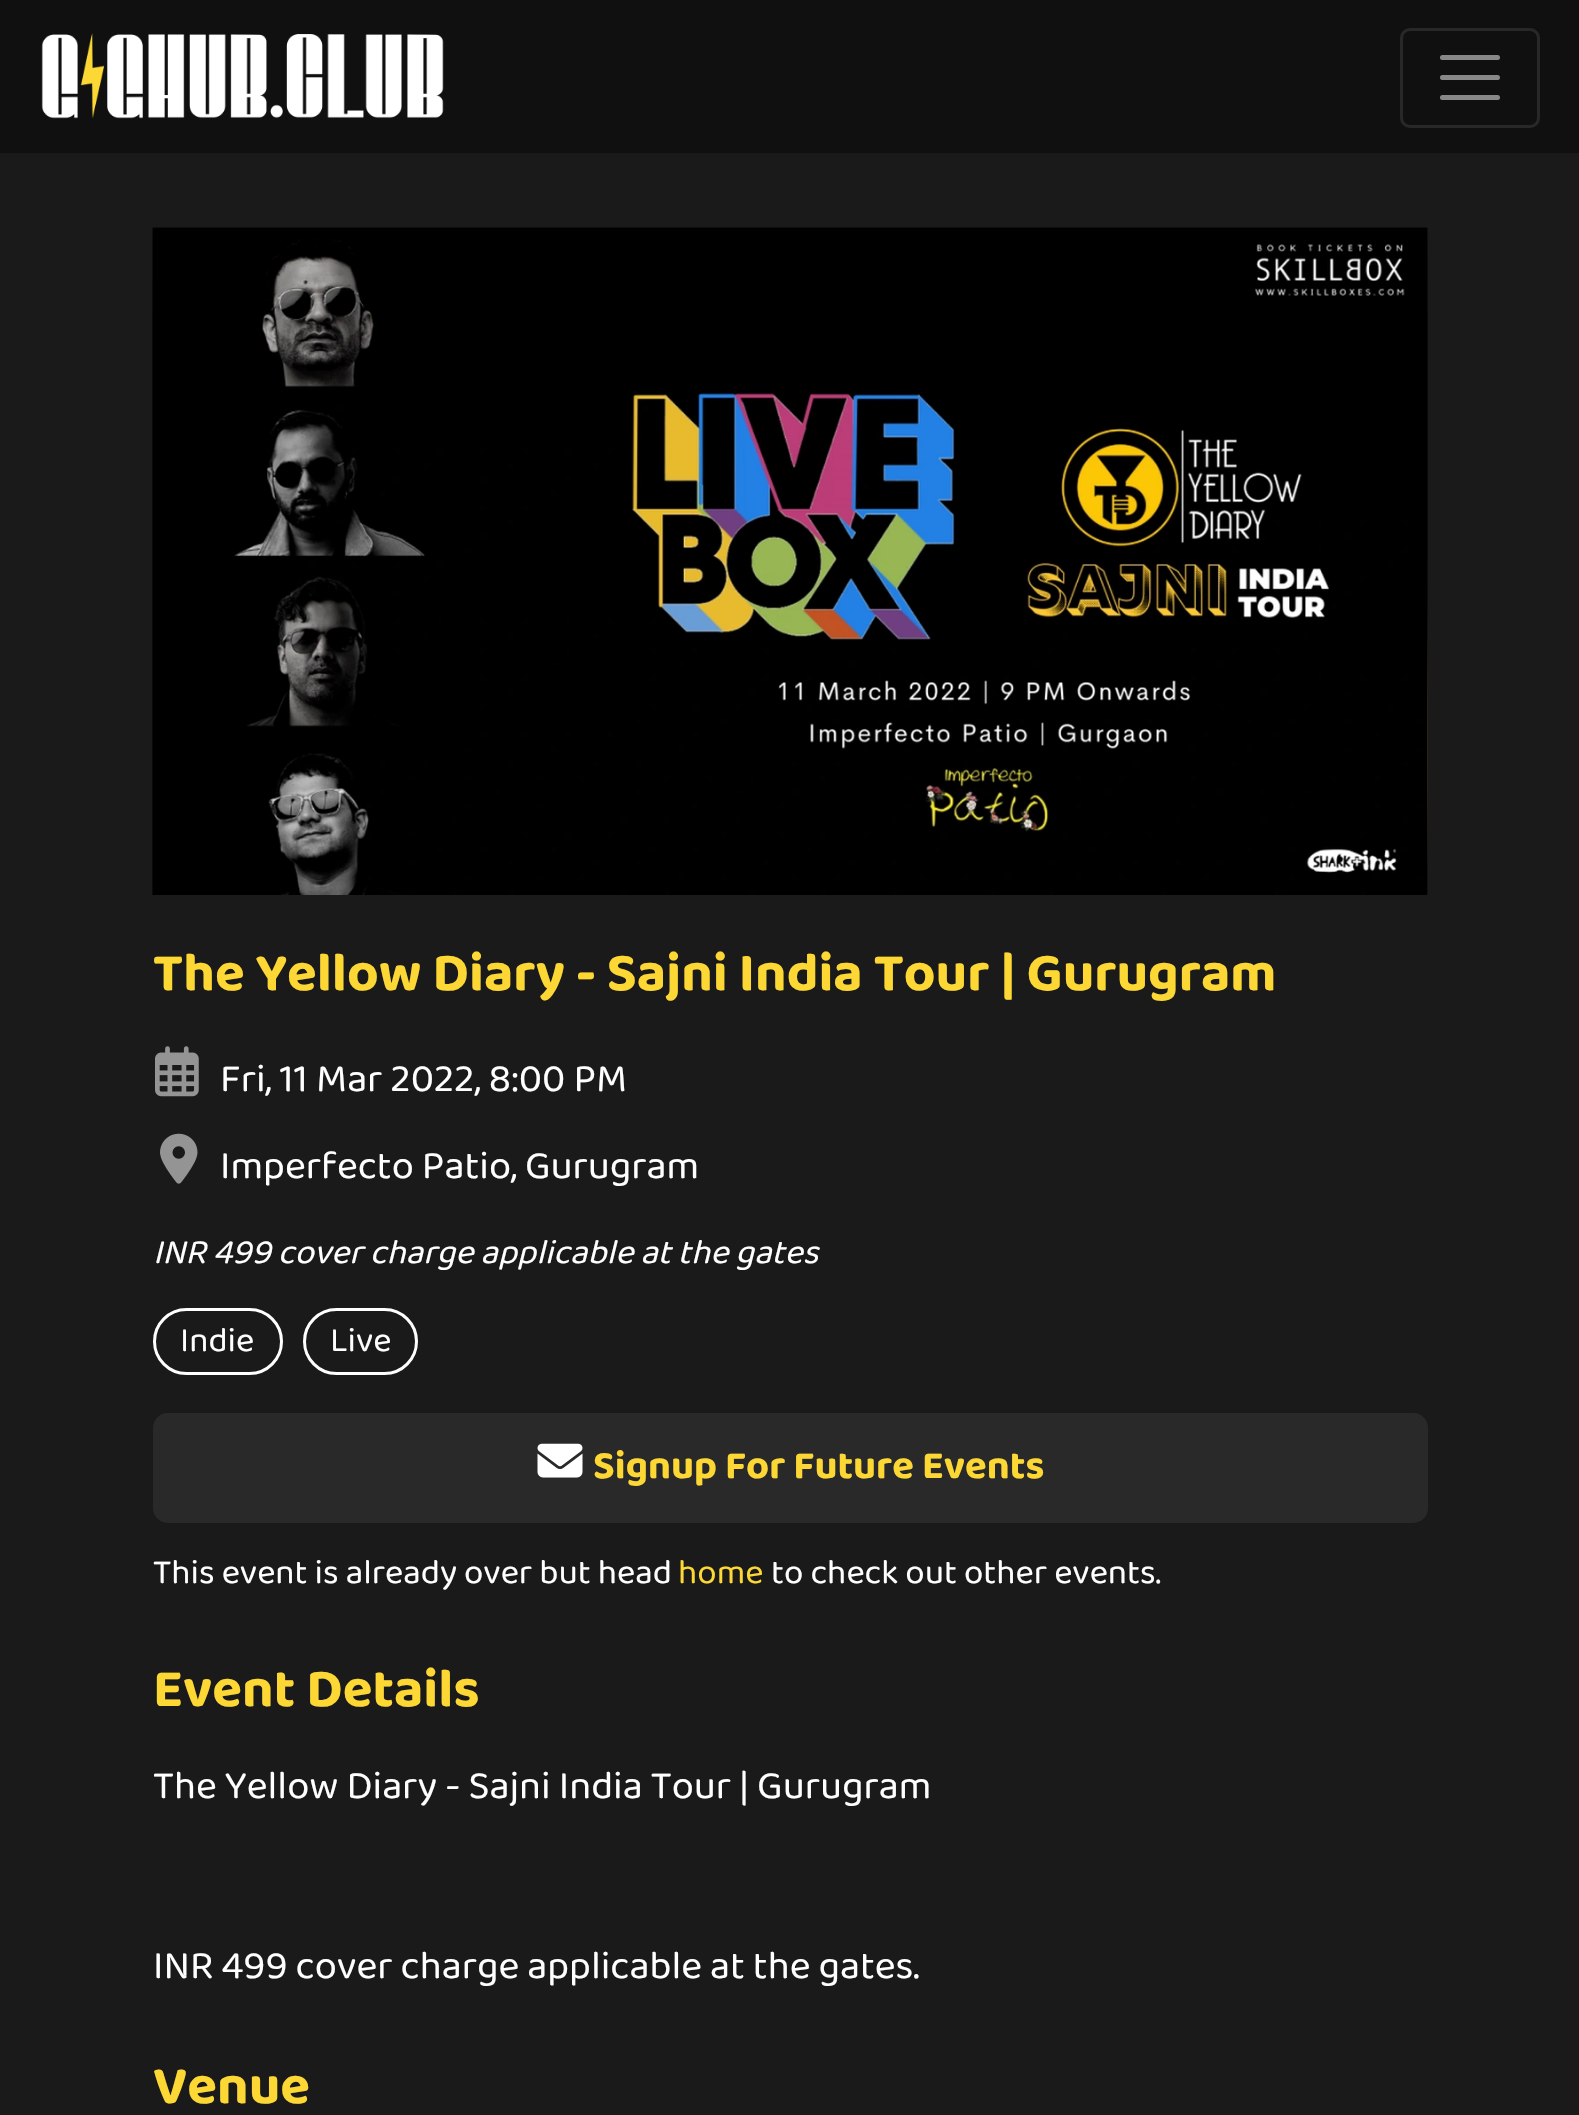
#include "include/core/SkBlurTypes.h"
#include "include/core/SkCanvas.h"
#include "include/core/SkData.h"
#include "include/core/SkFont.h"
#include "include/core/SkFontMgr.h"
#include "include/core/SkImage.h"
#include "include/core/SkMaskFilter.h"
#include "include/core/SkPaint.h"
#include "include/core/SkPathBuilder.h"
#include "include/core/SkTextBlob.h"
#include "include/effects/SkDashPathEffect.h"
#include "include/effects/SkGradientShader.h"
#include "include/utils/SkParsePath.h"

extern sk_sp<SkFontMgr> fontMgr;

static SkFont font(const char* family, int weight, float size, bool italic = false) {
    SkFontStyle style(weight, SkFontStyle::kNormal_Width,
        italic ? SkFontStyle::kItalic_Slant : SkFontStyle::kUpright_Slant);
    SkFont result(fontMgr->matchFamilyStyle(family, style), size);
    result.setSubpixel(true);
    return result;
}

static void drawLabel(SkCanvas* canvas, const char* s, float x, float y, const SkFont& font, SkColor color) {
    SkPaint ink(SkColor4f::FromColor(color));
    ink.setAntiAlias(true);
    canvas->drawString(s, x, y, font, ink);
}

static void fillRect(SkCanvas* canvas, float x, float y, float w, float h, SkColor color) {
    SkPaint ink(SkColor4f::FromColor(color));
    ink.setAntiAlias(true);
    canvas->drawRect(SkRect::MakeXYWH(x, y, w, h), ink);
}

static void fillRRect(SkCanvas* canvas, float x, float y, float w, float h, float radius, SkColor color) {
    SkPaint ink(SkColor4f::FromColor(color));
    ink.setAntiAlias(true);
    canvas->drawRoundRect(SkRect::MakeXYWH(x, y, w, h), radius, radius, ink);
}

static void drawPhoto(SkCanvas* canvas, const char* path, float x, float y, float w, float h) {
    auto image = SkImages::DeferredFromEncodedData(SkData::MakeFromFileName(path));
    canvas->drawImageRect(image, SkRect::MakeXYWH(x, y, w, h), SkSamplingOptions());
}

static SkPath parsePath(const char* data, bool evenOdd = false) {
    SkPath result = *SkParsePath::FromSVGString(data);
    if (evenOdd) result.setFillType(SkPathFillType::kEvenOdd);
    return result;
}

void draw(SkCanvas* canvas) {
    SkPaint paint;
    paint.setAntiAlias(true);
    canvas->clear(0xFF1A1A1A);
    fillRect(canvas, 0, 0, 1579, 153, 0xFF101010);
    drawPhoto(canvas, "assets/img1.png", 41, 33, 403, 86);
    paint.setStroke(true);
    paint.setStrokeWidth(3);
    paint.setColor(0xFF282828);
    canvas->drawRoundRect(SkRect::MakeXYWH(1401.5f, 29.5f, 137, 97), 8.5f, 8.5f, paint);
    paint.setStrokeWidth(5);
    paint.setStrokeCap(SkPaint::kRound_Cap);
    paint.setColor(0xFF888888);
    canvas->drawPath(parsePath("M1442.5 57.5H1497.5M1442.5 77.5H1497.5M1442.5 97.5H1497.5"), paint);
    drawPhoto(canvas, "assets/img2.png", 152, 227, 1276, 668);
    drawPhoto(canvas, "assets/img3.png", 152, 227, 1276, 668);
    SkFont font1 = font("Baloo Paaji 2", 700, 55);
    drawLabel(canvas, "The Yellow Diary - Sajni India Tour | Gurugram", 153, 990, font1, 0xFFFDD835);
    drawPhoto(canvas, "assets/img4.png", 155, 1046, 44, 51);
    SkFont font2 = font("Baloo Paaji 2", 400, 40);
    drawLabel(canvas, "Fri, 11 Mar 2022, 8:00 PM", 220, 1091, font2, 0xFFFFFFFF);
    drawPhoto(canvas, "assets/img5.png", 160, 1133, 38, 51);
    drawLabel(canvas, "Imperfecto Patio, Gurugram", 220, 1178, font2, 0xFFFFFFFF);
    SkFont font3 = font("Baloo Paaji 2", 400, 35, true);
    drawLabel(canvas, "INR 499 cover charge applicable at the gates", 153, 1263, font3, 0xFFFFFFFF);
    paint.setStrokeWidth(3);
    paint.setStrokeCap(SkPaint::kButt_Cap);
    paint.setColor(0xFFFFFFFF);
    canvas->drawRoundRect(SkRect::MakeXYWH(154.5f, 1309.5f, 127, 64), 32, 32, paint);
    SkFont font4 = font("Baloo Paaji 2", 400, 35);
    drawLabel(canvas, "Indie", 180, 1351, font4, 0xFFFFFFFF);
    canvas->drawRoundRect(SkRect::MakeXYWH(304.5f, 1309.5f, 112, 64), 32, 32, paint);
    drawLabel(canvas, "Live", 330, 1351, font4, 0xFFFFFFFF);
    fillRRect(canvas, 153, 1413, 1275, 110, 15, 0xFF292929);
    drawPhoto(canvas, "assets/img6.png", 537, 1443, 46, 35);
    SkFont font5 = font("Baloo Paaji 2", 700, 40);
    drawLabel(canvas, "Signup For Future Events", 593, 1478, font5, 0xFFFDD835);
    drawLabel(canvas, "This event is already over but head", 153, 1583, font4, 0xFFFFFFFF);
    drawLabel(canvas, "home", 678, 1583, font4, 0xFFFDD835);
    drawLabel(canvas, "to check out other events.", 771, 1583, font4, 0xFFFFFFFF);
    drawLabel(canvas, "Event Details", 153, 1706, font1, 0xFFFDD835);
    drawLabel(canvas, "The Yellow Diary - Sajni India Tour | Gurugram", 153, 1798, font2, 0xFFFFFFFF);
    drawLabel(canvas, "INR 499 cover charge applicable at the gates.", 153, 1978, font2, 0xFFFFFFFF);
    drawLabel(canvas, "Venue", 153, 2103, font1, 0xFFFDD835);
}
